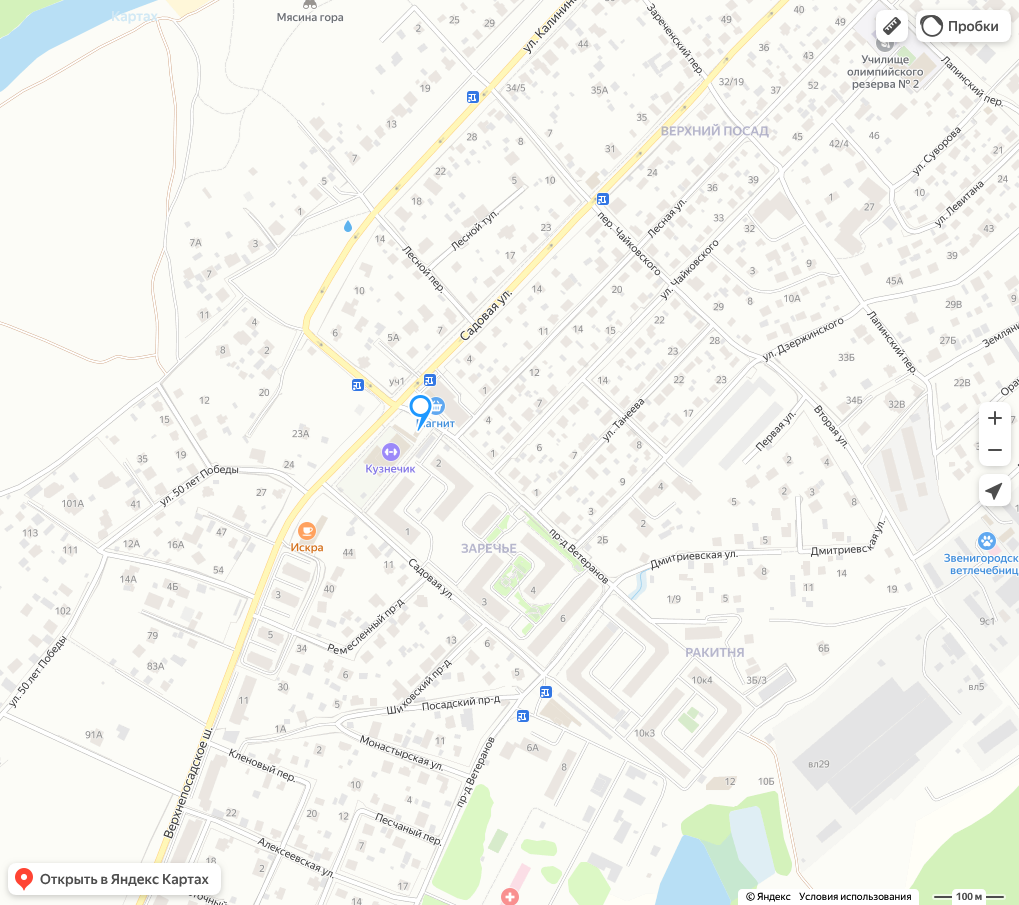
#include "include/core/SkBlurTypes.h"
#include "include/core/SkCanvas.h"
#include "include/core/SkData.h"
#include "include/core/SkFont.h"
#include "include/core/SkFontMgr.h"
#include "include/core/SkImage.h"
#include "include/core/SkMaskFilter.h"
#include "include/core/SkPaint.h"
#include "include/core/SkPathBuilder.h"
#include "include/core/SkTextBlob.h"
#include "include/effects/SkDashPathEffect.h"
#include "include/effects/SkGradientShader.h"
#include "include/utils/SkParsePath.h"

extern sk_sp<SkFontMgr> fontMgr;

static SkFont font(const char* family, int weight, float size, bool italic = false) {
    SkFontStyle style(weight, SkFontStyle::kNormal_Width,
        italic ? SkFontStyle::kItalic_Slant : SkFontStyle::kUpright_Slant);
    SkFont result(fontMgr->matchFamilyStyle(family, style), size);
    result.setSubpixel(true);
    return result;
}

static void drawLabel(SkCanvas* canvas, const char* s, float x, float y, const SkFont& font, SkColor color) {
    SkPaint ink(SkColor4f::FromColor(color));
    ink.setAntiAlias(true);
    canvas->drawString(s, x, y, font, ink);
}

static void fillRRect(SkCanvas* canvas, float x, float y, float w, float h, float radius, SkColor color) {
    SkPaint ink(SkColor4f::FromColor(color));
    ink.setAntiAlias(true);
    canvas->drawRoundRect(SkRect::MakeXYWH(x, y, w, h), radius, radius, ink);
}

static void drawPhoto(SkCanvas* canvas, const char* path, float x, float y, float w, float h) {
    auto image = SkImages::DeferredFromEncodedData(SkData::MakeFromFileName(path));
    canvas->drawImageRect(image, SkRect::MakeXYWH(x, y, w, h), SkSamplingOptions());
}

static SkPath parsePath(const char* data, bool evenOdd = false) {
    SkPath result = *SkParsePath::FromSVGString(data);
    if (evenOdd) result.setFillType(SkPathFillType::kEvenOdd);
    return result;
}

void draw(SkCanvas* canvas) {
    SkPaint paint;
    paint.setAntiAlias(true);
    canvas->clear(0xFFFFFFFF);
    drawPhoto(canvas, "assets/img1.png", 0, 0, 181, 199);
    drawPhoto(canvas, "assets/img2.png", 181, 0, 256, 199);
    drawPhoto(canvas, "assets/img3.png", 437, 0, 256, 199);
    drawPhoto(canvas, "assets/img4.png", 693, 0, 256, 199);
    drawPhoto(canvas, "assets/img5.png", 949, 0, 70, 199);
    drawPhoto(canvas, "assets/img6.png", 0, 199, 181, 256);
    drawPhoto(canvas, "assets/img7.png", 181, 199, 256, 256);
    drawPhoto(canvas, "assets/img8.png", 437, 199, 256, 256);
    drawPhoto(canvas, "assets/img9.png", 693, 199, 256, 256);
    drawPhoto(canvas, "assets/img10.png", 949, 199, 70, 256);
    drawPhoto(canvas, "assets/img11.png", 0, 455, 181, 256);
    drawPhoto(canvas, "assets/img12.png", 181, 455, 256, 256);
    drawPhoto(canvas, "assets/img13.png", 437, 455, 256, 256);
    drawPhoto(canvas, "assets/img14.png", 693, 455, 256, 256);
    drawPhoto(canvas, "assets/img15.png", 949, 455, 70, 256);
    drawPhoto(canvas, "assets/img16.png", 0, 711, 181, 194);
    drawPhoto(canvas, "assets/img17.png", 181, 711, 256, 194);
    drawPhoto(canvas, "assets/img18.png", 437, 711, 256, 194);
    drawPhoto(canvas, "assets/img19.png", 693, 711, 256, 194);
    drawPhoto(canvas, "assets/img20.png", 949, 711, 70, 194);
    drawPhoto(canvas, "assets/img21.png", 408, 393, 26, 40);
    SkFont font1 = font("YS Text", 500, 14);
    drawLabel(canvas, "Картах", 111, 21, font1, 0xFFD1E9F5);
    paint.setColor(0x33000000);
    paint.setMaskFilter(SkMaskFilter::MakeBlur(kNormal_SkBlurStyle, 3));
    canvas->drawRoundRect(SkRect::MakeXYWH(876, 12, 32, 32), 8, 8, paint);
    paint.setMaskFilter(nullptr);
    fillRRect(canvas, 876, 10, 32, 32, 8, 0xFFFFFFFF);
    drawPhoto(canvas, "assets/img22.png", 883, 17, 18, 18);
    paint.setMaskFilter(SkMaskFilter::MakeBlur(kNormal_SkBlurStyle, 3));
    canvas->drawRoundRect(SkRect::MakeXYWH(916, 12, 95, 32), 8, 8, paint);
    paint.setMaskFilter(nullptr);
    fillRRect(canvas, 916, 10, 95, 32, 8, 0xFFFFFFFF);
    drawPhoto(canvas, "assets/img23.png", 920, 15, 24, 22);
    drawLabel(canvas, "Пробки", 948, 31, font1, 0xFF4D4D4D);
    paint.setMaskFilter(SkMaskFilter::MakeBlur(kNormal_SkBlurStyle, 3));
    canvas->drawRoundRect(SkRect::MakeXYWH(979, 404, 32, 64), 12, 12, paint);
    paint.setMaskFilter(nullptr);
    paint.setColor(0xFFFFFFFF);
    canvas->drawPath(parsePath("M987 402H1003C1007.5 402 1011 405.5 1011 410V434H979V410C979 405.5 982.5 402 987 402Z"), paint);
    drawPhoto(canvas, "assets/img24.png", 988, 411, 14, 14);
    canvas->drawPath(parsePath("M979 434H1011V458C1011 462.5 1007.5 466 1003 466H987C982.5 466 979 462.5 979 458Z"), paint);
    drawPhoto(canvas, "assets/img25.png", 988, 449, 14, 2);
    paint.setColor(0x33000000);
    paint.setMaskFilter(SkMaskFilter::MakeBlur(kNormal_SkBlurStyle, 3));
    canvas->drawRoundRect(SkRect::MakeXYWH(979, 476, 32, 32), 8, 8, paint);
    paint.setMaskFilter(nullptr);
    fillRRect(canvas, 979, 474, 32, 32, 8, 0xFFFFFFFF);
    drawPhoto(canvas, "assets/img26.png", 985, 482, 18, 18);
    paint.setMaskFilter(SkMaskFilter::MakeBlur(kNormal_SkBlurStyle, 3));
    canvas->drawRoundRect(SkRect::MakeXYWH(8, 865, 213, 32), 8, 8, paint);
    paint.setMaskFilter(nullptr);
    fillRRect(canvas, 8, 863, 213, 32, 8, 0xFFFFFFFF);
    drawPhoto(canvas, "assets/img27.png", 15, 868, 18, 23);
    drawLabel(canvas, "Открыть в Яндекс Картах", 40, 884, font1, 0xFF4D4D4D);
    paint.setColor(0xFFFFFFFF);
    canvas->drawPath(parsePath("M742 889H915C917 889 919 891 919 893V905H738V893C738 891 740 889 742 889Z"), paint);
    SkFont font2 = font("YS Text", 400, 10);
    drawLabel(canvas, "© Яндекс", 746, 900, font2, 0xFF000000);
    drawLabel(canvas, "Условия использования", 799, 900, font2, 0xFF000000);
    fillRRect(canvas, 932, 894, 74, 6, 3, 0xFFEEFAE4);
    fillRRect(canvas, 934, 896, 70, 2, 1, 0xFF4D4D4D);
    canvas->drawPath(parsePath("M956 889H982C984 889 986 891 986 893V905H952V893C952 891 954 889 956 889Z"), paint);
    SkFont font3 = font("YS Text", 700, 10);
    drawLabel(canvas, "100 м", 956, 900, font3, 0xFF4D4D4D);
}
